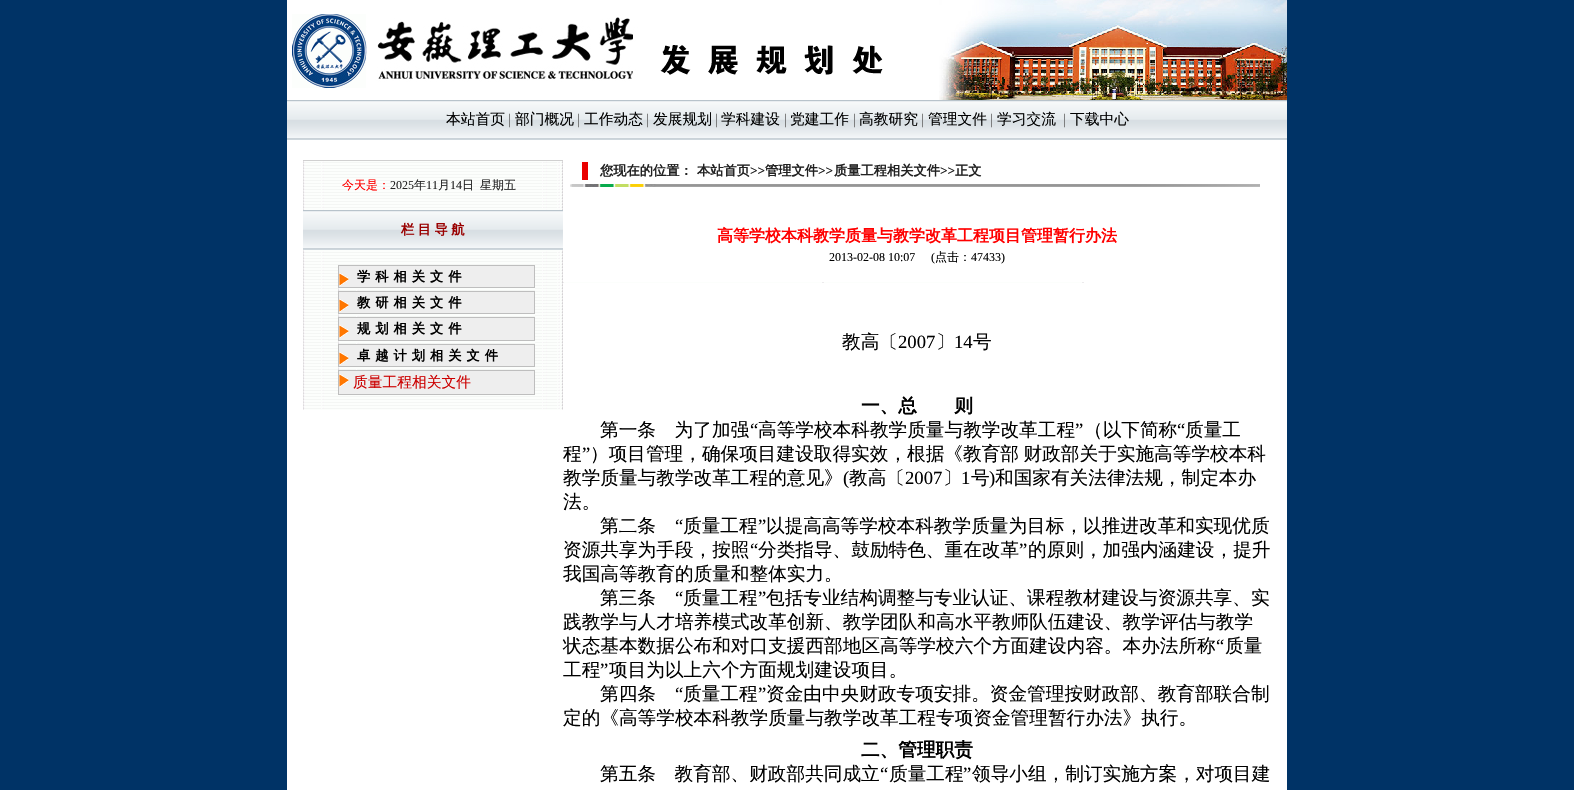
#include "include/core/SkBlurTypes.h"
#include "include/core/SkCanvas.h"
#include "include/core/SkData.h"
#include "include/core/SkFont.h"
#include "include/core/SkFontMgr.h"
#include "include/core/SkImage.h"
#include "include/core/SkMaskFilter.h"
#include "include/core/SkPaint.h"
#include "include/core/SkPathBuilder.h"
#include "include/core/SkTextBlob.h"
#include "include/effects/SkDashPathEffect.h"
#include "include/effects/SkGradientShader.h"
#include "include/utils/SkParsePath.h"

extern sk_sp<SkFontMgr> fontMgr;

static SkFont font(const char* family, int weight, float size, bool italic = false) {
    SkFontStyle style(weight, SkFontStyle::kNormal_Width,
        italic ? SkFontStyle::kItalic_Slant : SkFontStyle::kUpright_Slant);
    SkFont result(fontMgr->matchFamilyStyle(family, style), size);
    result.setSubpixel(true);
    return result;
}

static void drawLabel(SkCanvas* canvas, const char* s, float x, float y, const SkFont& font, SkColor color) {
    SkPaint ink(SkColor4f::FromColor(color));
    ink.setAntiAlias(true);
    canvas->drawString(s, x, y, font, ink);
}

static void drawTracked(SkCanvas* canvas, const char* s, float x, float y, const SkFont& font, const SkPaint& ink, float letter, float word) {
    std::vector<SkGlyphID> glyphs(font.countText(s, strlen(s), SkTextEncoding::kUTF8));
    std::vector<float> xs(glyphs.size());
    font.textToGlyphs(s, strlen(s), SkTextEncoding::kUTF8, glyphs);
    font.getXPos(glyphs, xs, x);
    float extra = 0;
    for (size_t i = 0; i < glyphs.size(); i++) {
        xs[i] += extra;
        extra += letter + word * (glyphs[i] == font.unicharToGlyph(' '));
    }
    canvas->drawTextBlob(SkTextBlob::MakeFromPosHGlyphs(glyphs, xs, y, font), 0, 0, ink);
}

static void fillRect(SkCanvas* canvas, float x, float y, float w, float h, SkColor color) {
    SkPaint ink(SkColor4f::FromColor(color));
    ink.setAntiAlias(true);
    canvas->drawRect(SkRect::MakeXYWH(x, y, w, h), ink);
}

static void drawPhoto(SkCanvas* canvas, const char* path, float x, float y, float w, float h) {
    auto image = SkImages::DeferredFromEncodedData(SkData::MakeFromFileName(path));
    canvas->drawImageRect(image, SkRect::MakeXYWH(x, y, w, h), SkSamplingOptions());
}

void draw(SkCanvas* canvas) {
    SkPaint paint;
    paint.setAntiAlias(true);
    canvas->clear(0xFF003366);
    fillRect(canvas, 287, 0, 652, 100, 0xFFFFFFFF);
    drawPhoto(canvas, "assets/img1.png", 292, 14, 591, 74);
    drawPhoto(canvas, "assets/img2.png", 939, 0, 348, 100);
    drawPhoto(canvas, "assets/img3.png", 287, 100, 1000, 40);
    SkFont font1 = font("WenQuanYi Zen Hei", 500, 14.75f);
    drawLabel(canvas, "本站首页", 446, 124, font1, 0xFF000000);
    SkFont font2 = font("Liberation Serif", 400, 14.75f);
    drawLabel(canvas, "|", 508, 124, font2, 0xFF666666);
    drawLabel(canvas, "部门概况", 515, 124, font1, 0xFF000000);
    drawLabel(canvas, "|", 577, 124, font2, 0xFF666666);
    drawLabel(canvas, "工作动态", 584, 124, font1, 0xFF000000);
    drawLabel(canvas, "|", 646, 124, font2, 0xFF666666);
    drawLabel(canvas, "发展规划", 653, 124, font1, 0xFF000000);
    drawLabel(canvas, "|", 715, 124, font2, 0xFF666666);
    drawLabel(canvas, "学科建设", 721, 124, font1, 0xFF000000);
    drawLabel(canvas, "|", 784, 124, font2, 0xFF666666);
    drawLabel(canvas, "党建工作", 790, 124, font1, 0xFF000000);
    drawLabel(canvas, "|", 853, 124, font2, 0xFF666666);
    drawLabel(canvas, "高教研究", 859, 124, font1, 0xFF000000);
    drawLabel(canvas, "|", 921, 124, font2, 0xFF666666);
    drawLabel(canvas, "管理文件", 928, 124, font1, 0xFF000000);
    drawLabel(canvas, "|", 990, 124, font2, 0xFF666666);
    drawLabel(canvas, "学习交流", 997, 124, font1, 0xFF000000);
    drawLabel(canvas, "|", 1063, 124, font2, 0xFF666666);
    drawLabel(canvas, "下载中心", 1070, 124, font1, 0xFF000000);
    fillRect(canvas, 287, 140, 1000, 650, 0xFFFFFFFF);
    drawPhoto(canvas, "assets/img4.png", 303, 161, 260, 249);
    fillRect(canvas, 303, 160, 260, 1, 0xFFD0D0D0);
    SkFont font3 = font("WenQuanYi Zen Hei", 500, 12);
    drawLabel(canvas, "今天是：", 342, 189, font3, 0xFFFF0000);
    SkFont font4 = font("Liberation Serif", 400, 12);
    drawLabel(canvas, "2025", 390, 189, font4, 0xFF222222);
    drawLabel(canvas, "年", 414, 189, font3, 0xFF222222);
    drawLabel(canvas, "11", 426, 189, font4, 0xFF222222);
    drawLabel(canvas, "月", 438, 189, font3, 0xFF222222);
    drawLabel(canvas, "14", 450, 189, font4, 0xFF222222);
    drawLabel(canvas, "日", 462, 189, font3, 0xFF222222);
    drawLabel(canvas, "星期五", 480, 189, font3, 0xFF222222);
    drawPhoto(canvas, "assets/img5.png", 303, 210, 260, 40);
    SkFont font5 = font("WenQuanYi Zen Hei", 700, 13.25f);
    paint.setColor(0xFF990000);
    drawTracked(canvas, "栏 目 导 航", 401, 234, font5, paint, 0, -0.5f);
    paint.setColor(0xFFEEEEEE);
    canvas->drawRect(SkRect::MakeXYWH(338.5f, 265.5f, 196, 22), paint);
    paint.setStroke(true);
    paint.setStrokeWidth(1);
    paint.setColor(0xFFBEBEBE);
    canvas->drawRect(SkRect::MakeXYWH(338.5f, 265.5f, 196, 22), paint);
    drawPhoto(canvas, "assets/img6.png", 339, 273, 10, 13);
    paint.setStroke(false);
    paint.setColor(0xFF000000);
    drawTracked(canvas, "学科相关文件", 357, 281, font5, paint, 5, 0);
    drawPhoto(canvas, "assets/img7.png", 338, 288, 197, 3);
    paint.setColor(0xFFEEEEEE);
    canvas->drawRect(SkRect::MakeXYWH(338.5f, 291.5f, 196, 22), paint);
    paint.setStroke(true);
    paint.setColor(0xFFBEBEBE);
    canvas->drawRect(SkRect::MakeXYWH(338.5f, 291.5f, 196, 22), paint);
    drawPhoto(canvas, "assets/img6.png", 339, 299, 10, 13);
    paint.setStroke(false);
    paint.setColor(0xFF000000);
    drawTracked(canvas, "教研相关文件", 357, 307, font5, paint, 5, 0);
    drawPhoto(canvas, "assets/img7.png", 338, 314, 197, 3);
    paint.setColor(0xFFEEEEEE);
    canvas->drawRect(SkRect::MakeXYWH(338.5f, 317.5f, 196, 23), paint);
    paint.setStroke(true);
    paint.setColor(0xFFBEBEBE);
    canvas->drawRect(SkRect::MakeXYWH(338.5f, 317.5f, 196, 23), paint);
    drawPhoto(canvas, "assets/img6.png", 339, 325, 10, 13);
    paint.setStroke(false);
    paint.setColor(0xFF000000);
    drawTracked(canvas, "规划相关文件", 357, 333, font5, paint, 5, 0);
    drawPhoto(canvas, "assets/img7.png", 338, 341, 197, 3);
    paint.setColor(0xFFEEEEEE);
    canvas->drawRect(SkRect::MakeXYWH(338.5f, 344.5f, 196, 22), paint);
    paint.setStroke(true);
    paint.setColor(0xFFBEBEBE);
    canvas->drawRect(SkRect::MakeXYWH(338.5f, 344.5f, 196, 22), paint);
    drawPhoto(canvas, "assets/img6.png", 339, 352, 10, 13);
    paint.setStroke(false);
    paint.setColor(0xFF000000);
    drawTracked(canvas, "卓越计划相关文件", 357, 360, font5, paint, 5, 0);
    drawPhoto(canvas, "assets/img8.png", 338, 367, 19, 3);
    paint.setColor(0xFFEEEEEE);
    canvas->drawRect(SkRect::MakeXYWH(338.5f, 370.5f, 196, 24), paint);
    paint.setStroke(true);
    paint.setColor(0xFFBEBEBE);
    canvas->drawRect(SkRect::MakeXYWH(338.5f, 370.5f, 196, 24), paint);
    drawPhoto(canvas, "assets/img6.png", 339, 374, 10, 13);
    drawLabel(canvas, "质量工程相关文件", 353, 387, font1, 0xFFCC0000);
    fillRect(canvas, 582, 162, 6, 18, 0xFFEA0000);
    drawLabel(canvas, "您现在的位置：", 600, 175, font5, 0xFF222222);
    drawLabel(canvas, "本站首页", 697, 175, font5, 0xFF222222);
    SkFont font6 = font("Liberation Serif", 700, 13.25f);
    drawLabel(canvas, ">>", 750, 175, font6, 0xFF222222);
    drawLabel(canvas, "管理文件", 765, 175, font5, 0xFF222222);
    drawLabel(canvas, ">>", 818, 175, font6, 0xFF222222);
    drawLabel(canvas, "质量工程相关文件", 834, 175, font5, 0xFF222222);
    drawLabel(canvas, ">>", 940, 175, font6, 0xFF222222);
    drawLabel(canvas, "正文", 955, 175, font5, 0xFF222222);
    drawPhoto(canvas, "assets/img9.png", 570, 184, 690, 3);
    SkFont font7 = font("WenQuanYi Zen Hei", 700, 16);
    drawLabel(canvas, "高等学校本科教学质量与教学改革工程项目管理暂行办法", 717, 241, font7, 0xFFFF0000);
    drawLabel(canvas, "2013-02-08 10:07", 829, 261, font4, 0xFF000000);
    drawLabel(canvas, "(", 931, 261, font4, 0xFF000000);
    drawLabel(canvas, "点击：", 935, 261, font3, 0xFF000000);
    drawLabel(canvas, "47433)", 971, 261, font4, 0xFF000000);
    drawPhoto(canvas, "assets/img10.png", 563, 282, 521, 1);
    SkFont font8 = font("WenQuanYi Zen Hei", 500, 18.65f);
    drawLabel(canvas, "教高〔", 842, 348, font8, 0xFF000000);
    SkFont font9 = font("Liberation Serif", 400, 18.65f);
    drawLabel(canvas, "2007", 898, 348, font9, 0xFF000000);
    drawLabel(canvas, "〕", 936, 348, font8, 0xFF000000);
    drawLabel(canvas, "14", 954, 348, font9, 0xFF000000);
    drawLabel(canvas, "号", 973, 348, font8, 0xFF000000);
    SkFont font10 = font("WenQuanYi Zen Hei", 700, 18.65f);
    drawLabel(canvas, "一、总　　则", 861, 412, font10, 0xFF000000);
    drawLabel(canvas, "第一条　为了加强", 600, 436, font8, 0xFF000000);
    drawLabel(canvas, "“", 750, 436, font9, 0xFF000000);
    drawLabel(canvas, "高等学校本科教学质量与教学改革工程", 758, 436, font8, 0xFF000000);
    drawLabel(canvas, "”", 1075, 436, font9, 0xFF000000);
    drawLabel(canvas, "（以下简称", 1084, 436, font8, 0xFF000000);
    drawLabel(canvas, "“", 1177, 436, font9, 0xFF000000);
    drawLabel(canvas, "质量工", 1185, 436, font8, 0xFF000000);
    drawLabel(canvas, "程", 563, 460, font8, 0xFF000000);
    drawLabel(canvas, "”", 582, 460, font9, 0xFF000000);
    paint.setStroke(false);
    paint.setColor(0xFF000000);
    drawTracked(canvas, "）项目管理，确保项目建设取得实效，根据《教育部 财政部关于实施高等学校本科", 590, 460, font8, paint, 0, -1);
    drawLabel(canvas, "教学质量与教学改革工程的意见》", 563, 484, font8, 0xFF000000);
    drawLabel(canvas, "(", 843, 484, font9, 0xFF000000);
    drawLabel(canvas, "教高〔", 849, 484, font8, 0xFF000000);
    drawLabel(canvas, "2007", 905, 484, font9, 0xFF000000);
    drawLabel(canvas, "〕", 943, 484, font8, 0xFF000000);
    drawLabel(canvas, "1", 961, 484, font9, 0xFF000000);
    drawLabel(canvas, "号", 971, 484, font8, 0xFF000000);
    drawLabel(canvas, ")", 989, 484, font9, 0xFF000000);
    drawLabel(canvas, "和国家有关法律法规，制定本办", 995, 484, font8, 0xFF000000);
    drawLabel(canvas, "法。", 563, 508, font8, 0xFF000000);
    drawLabel(canvas, "第二条", 600, 532, font8, 0xFF000000);
    drawLabel(canvas, "“", 675, 532, font9, 0xFF000000);
    drawLabel(canvas, "质量工程", 683, 532, font8, 0xFF000000);
    drawLabel(canvas, "”", 758, 532, font9, 0xFF000000);
    drawLabel(canvas, "以提高高等学校本科教学质量为目标，以推进改革和实现优质", 766, 532, font8, 0xFF000000);
    drawLabel(canvas, "资源共享为手段，按照", 563, 556, font8, 0xFF000000);
    drawLabel(canvas, "“", 750, 556, font9, 0xFF000000);
    drawLabel(canvas, "分类指导、鼓励特色、重在改革", 758, 556, font8, 0xFF000000);
    drawLabel(canvas, "”", 1019, 556, font9, 0xFF000000);
    drawLabel(canvas, "的原则，加强内涵建设，提升", 1028, 556, font8, 0xFF000000);
    drawLabel(canvas, "我国高等教育的质量和整体实力。", 563, 580, font8, 0xFF000000);
    drawLabel(canvas, "第三条", 600, 604, font8, 0xFF000000);
    drawLabel(canvas, "“", 675, 604, font9, 0xFF000000);
    drawLabel(canvas, "质量工程", 683, 604, font8, 0xFF000000);
    drawLabel(canvas, "”", 758, 604, font9, 0xFF000000);
    drawLabel(canvas, "包括专业结构调整与专业认证、课程教材建设与资源共享、实", 766, 604, font8, 0xFF000000);
    drawLabel(canvas, "践教学与人才培养模式改革创新、教学团队和高水平教师队伍建设、教学评估与教学", 563, 628, font8, 0xFF000000);
    drawLabel(canvas, "状态基本数据公布和对口支援西部地区高等学校六个方面建设内容。本办法所称", 563, 652, font8, 0xFF000000);
    drawLabel(canvas, "“", 1216, 652, font9, 0xFF000000);
    drawLabel(canvas, "质量", 1225, 652, font8, 0xFF000000);
    drawLabel(canvas, "工程", 563, 676, font8, 0xFF000000);
    drawLabel(canvas, "”", 600, 676, font9, 0xFF000000);
    drawLabel(canvas, "项目为以上六个方面规划建设项目。", 609, 676, font8, 0xFF000000);
    drawLabel(canvas, "第四条", 600, 700, font8, 0xFF000000);
    drawLabel(canvas, "“", 675, 700, font9, 0xFF000000);
    drawLabel(canvas, "质量工程", 683, 700, font8, 0xFF000000);
    drawLabel(canvas, "”", 758, 700, font9, 0xFF000000);
    drawLabel(canvas, "资金由中央财政专项安排。资金管理按财政部、教育部联合制", 766, 700, font8, 0xFF000000);
    drawLabel(canvas, "定的《高等学校本科教学质量与教学改革工程专项资金管理暂行办法》执行。", 563, 724, font8, 0xFF000000);
    drawLabel(canvas, "二、管理职责", 861, 756, font10, 0xFF000000);
    drawLabel(canvas, "第五条　教育部、财政部共同成立", 600, 780, font8, 0xFF000000);
    drawLabel(canvas, "“", 880, 780, font9, 0xFF000000);
    drawLabel(canvas, "质量工程", 889, 780, font8, 0xFF000000);
    drawLabel(canvas, "”", 963, 780, font9, 0xFF000000);
    drawLabel(canvas, "领导小组，制订实施方案，对项目建", 972, 780, font8, 0xFF000000);
}
